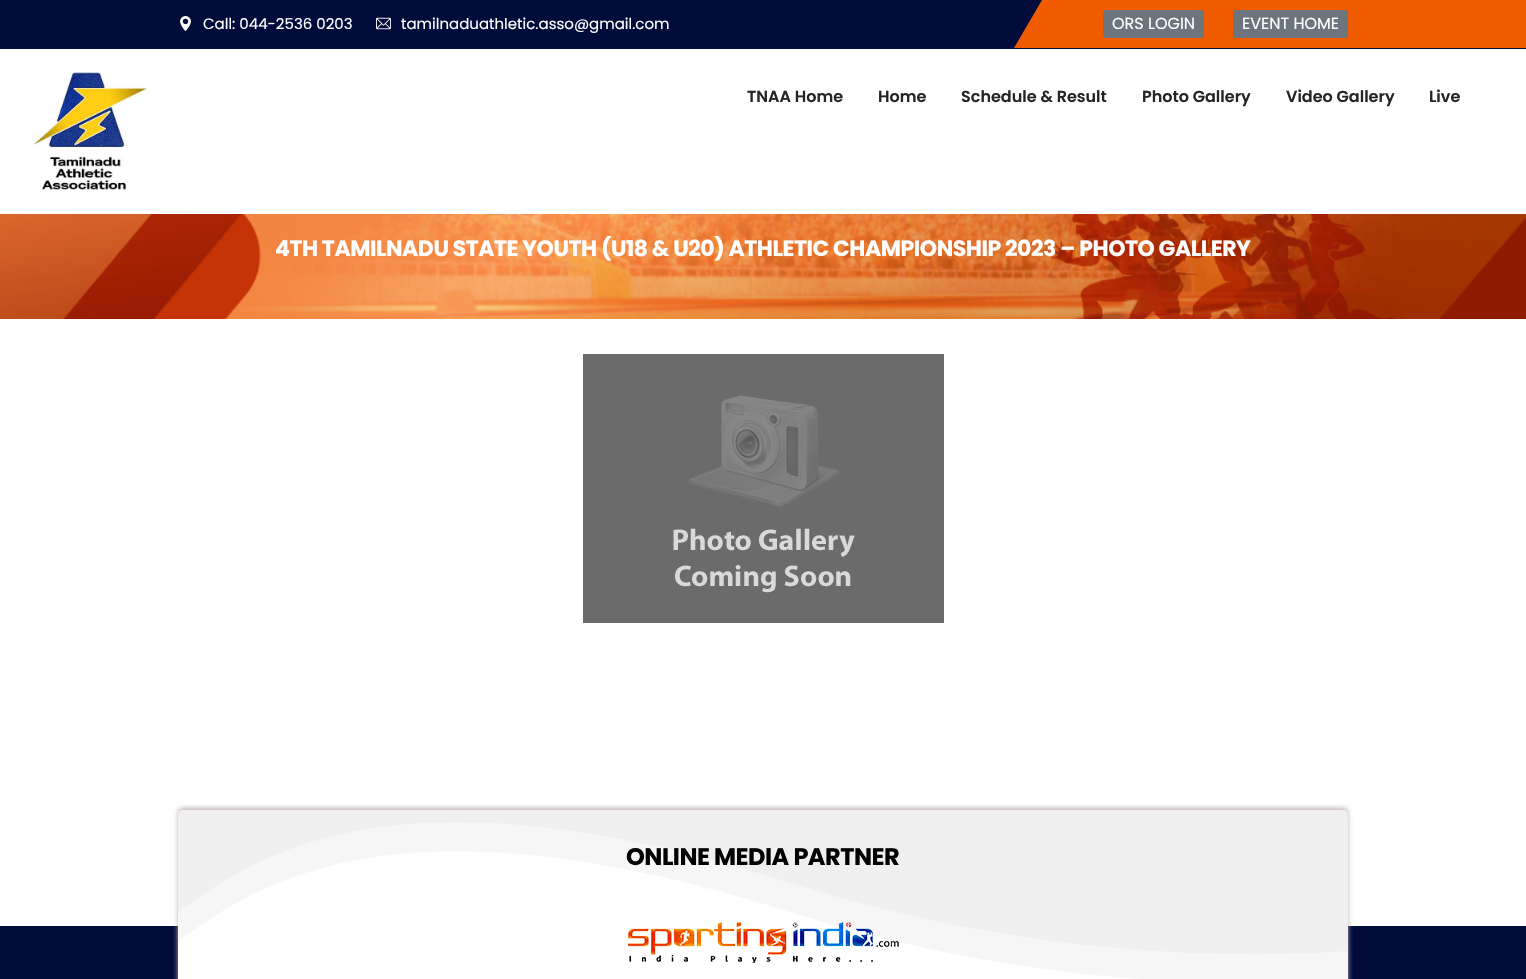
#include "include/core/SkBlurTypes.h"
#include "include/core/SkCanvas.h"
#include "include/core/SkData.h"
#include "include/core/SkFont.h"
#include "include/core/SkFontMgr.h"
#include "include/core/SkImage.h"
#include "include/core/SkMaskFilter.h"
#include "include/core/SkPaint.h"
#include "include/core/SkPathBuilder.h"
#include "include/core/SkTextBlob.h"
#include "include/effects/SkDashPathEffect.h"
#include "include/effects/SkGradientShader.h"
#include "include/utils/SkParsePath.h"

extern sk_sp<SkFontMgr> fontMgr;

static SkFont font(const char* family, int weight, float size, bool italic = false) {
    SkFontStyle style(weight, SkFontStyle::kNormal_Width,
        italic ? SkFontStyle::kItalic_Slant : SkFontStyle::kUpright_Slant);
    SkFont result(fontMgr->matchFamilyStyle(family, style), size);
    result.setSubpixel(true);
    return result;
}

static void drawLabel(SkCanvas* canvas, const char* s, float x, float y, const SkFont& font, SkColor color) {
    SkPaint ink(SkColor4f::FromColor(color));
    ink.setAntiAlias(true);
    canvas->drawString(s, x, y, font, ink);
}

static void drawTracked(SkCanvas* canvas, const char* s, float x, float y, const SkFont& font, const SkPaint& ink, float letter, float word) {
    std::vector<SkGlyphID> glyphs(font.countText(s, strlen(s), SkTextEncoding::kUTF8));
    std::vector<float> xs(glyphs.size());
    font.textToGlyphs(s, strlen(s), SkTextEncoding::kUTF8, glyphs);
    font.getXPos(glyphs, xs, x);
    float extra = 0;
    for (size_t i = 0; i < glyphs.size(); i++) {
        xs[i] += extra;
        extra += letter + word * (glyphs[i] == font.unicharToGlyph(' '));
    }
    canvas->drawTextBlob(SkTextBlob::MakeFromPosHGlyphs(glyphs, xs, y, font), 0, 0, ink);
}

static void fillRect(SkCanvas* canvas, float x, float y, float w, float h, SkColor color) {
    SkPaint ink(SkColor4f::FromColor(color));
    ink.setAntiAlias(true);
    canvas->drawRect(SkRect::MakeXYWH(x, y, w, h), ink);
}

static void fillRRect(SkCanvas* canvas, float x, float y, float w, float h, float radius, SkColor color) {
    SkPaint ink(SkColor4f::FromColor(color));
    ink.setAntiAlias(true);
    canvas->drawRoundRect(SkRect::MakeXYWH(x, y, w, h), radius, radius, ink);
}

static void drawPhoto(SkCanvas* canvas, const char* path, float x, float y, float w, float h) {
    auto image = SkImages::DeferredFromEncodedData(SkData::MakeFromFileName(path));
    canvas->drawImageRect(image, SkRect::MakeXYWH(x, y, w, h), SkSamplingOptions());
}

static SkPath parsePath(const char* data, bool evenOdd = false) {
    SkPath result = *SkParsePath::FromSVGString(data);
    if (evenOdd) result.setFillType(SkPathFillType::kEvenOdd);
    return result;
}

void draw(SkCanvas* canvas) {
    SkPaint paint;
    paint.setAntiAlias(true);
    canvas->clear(0xFFFFFFFF);
    fillRect(canvas, 0, 0, 1526, 49, 0xFF010C3A);
    drawPhoto(canvas, "assets/img1.png", 180, 16, 11, 15);
    SkFont font1 = font("Poppins", 400, 15);
    drawLabel(canvas, "Call: 044-2536 0203", 203, 29, font1, 0xFFFFFFFF);
    drawPhoto(canvas, "assets/img2.png", 376, 17, 15, 13);
    drawLabel(canvas, "tamilnaduathletic.asso@gmail.com", 401, 29, font1, 0xFFFFFFFF);
    paint.setColor(0xFFF15B00);
    canvas->drawPath(parsePath("M1042 0H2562L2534 48H1014Z"), paint);
    paint.setColor(0xFF6C757D);
    canvas->drawRoundRect(SkRect::MakeXYWH(1103.5f, 10.5f, 100, 27), 2.5f, 2.5f, paint);
    paint.setStroke(true);
    paint.setStrokeWidth(1);
    canvas->drawRoundRect(SkRect::MakeXYWH(1103.5f, 10.5f, 100, 27), 2.5f, 2.5f, paint);
    SkFont font2 = font("Poppins", 400, 16);
    drawLabel(canvas, "ORS LOGIN", 1112, 29, font2, 0xFFFFFFFF);
    paint.setStroke(false);
    canvas->drawRoundRect(SkRect::MakeXYWH(1233.5f, 10.5f, 114, 27), 2.5f, 2.5f, paint);
    paint.setStroke(true);
    canvas->drawRoundRect(SkRect::MakeXYWH(1233.5f, 10.5f, 114, 27), 2.5f, 2.5f, paint);
    drawLabel(canvas, "EVENT HOME", 1242, 29, font2, 0xFFFFFFFF);
    drawPhoto(canvas, "assets/img3.png", 30, 71, 118, 119);
    SkFont font3 = font("Poppins", 600, 16);
    drawLabel(canvas, "TNAA Home", 747, 102, font3, 0xFF252525);
    drawLabel(canvas, "Home", 878, 102, font3, 0xFF252525);
    drawLabel(canvas, "Schedule & Result", 961, 102, font3, 0xFF252525);
    drawLabel(canvas, "Photo Gallery", 1142, 102, font3, 0xFF252525);
    drawLabel(canvas, "Video Gallery", 1286, 102, font3, 0xFF252525);
    drawLabel(canvas, "Live", 1429, 102, font3, 0xFF252525);
    drawPhoto(canvas, "assets/img4.png", 0, 214, 1526, 105);
    SkFont font4 = font("Poppins", 700, 22);
    paint.setStroke(false);
    paint.setColor(0xFFFFFFFF);
    drawTracked(canvas, "4TH TAMILNADU STATE YOUTH (U18 & U20) ATHLETIC CHAMPIONSHIP 2023 – PHOTO GALLERY", 275, 256, font4, paint, -0.45f, 0);
    drawPhoto(canvas, "assets/img5.png", 583, 354, 361, 269);
    fillRect(canvas, 0, 926, 1526, 53, 0xFF010C3A);
    paint.setColor(0xFFC1B4B4);
    paint.setMaskFilter(SkMaskFilter::MakeBlur(kNormal_SkBlurStyle, 2.5f));
    canvas->drawRoundRect(SkRect::MakeXYWH(178, 808, 1170, 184), 5, 5, paint);
    paint.setMaskFilter(nullptr);
    fillRRect(canvas, 178, 810, 1170, 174, 5, 0xFFFFFFFF);
    drawPhoto(canvas, "assets/img6.png", 178, 810, 1170, 169);
    SkFont font5 = font("Poppins", 700, 24);
    paint.setColor(0xFF010101);
    drawTracked(canvas, "ONLINE MEDIA PARTNER", 626, 865, font5, paint, -0.5f, 0);
    drawPhoto(canvas, "assets/img7.png", 628, 922, 271, 41);
}
